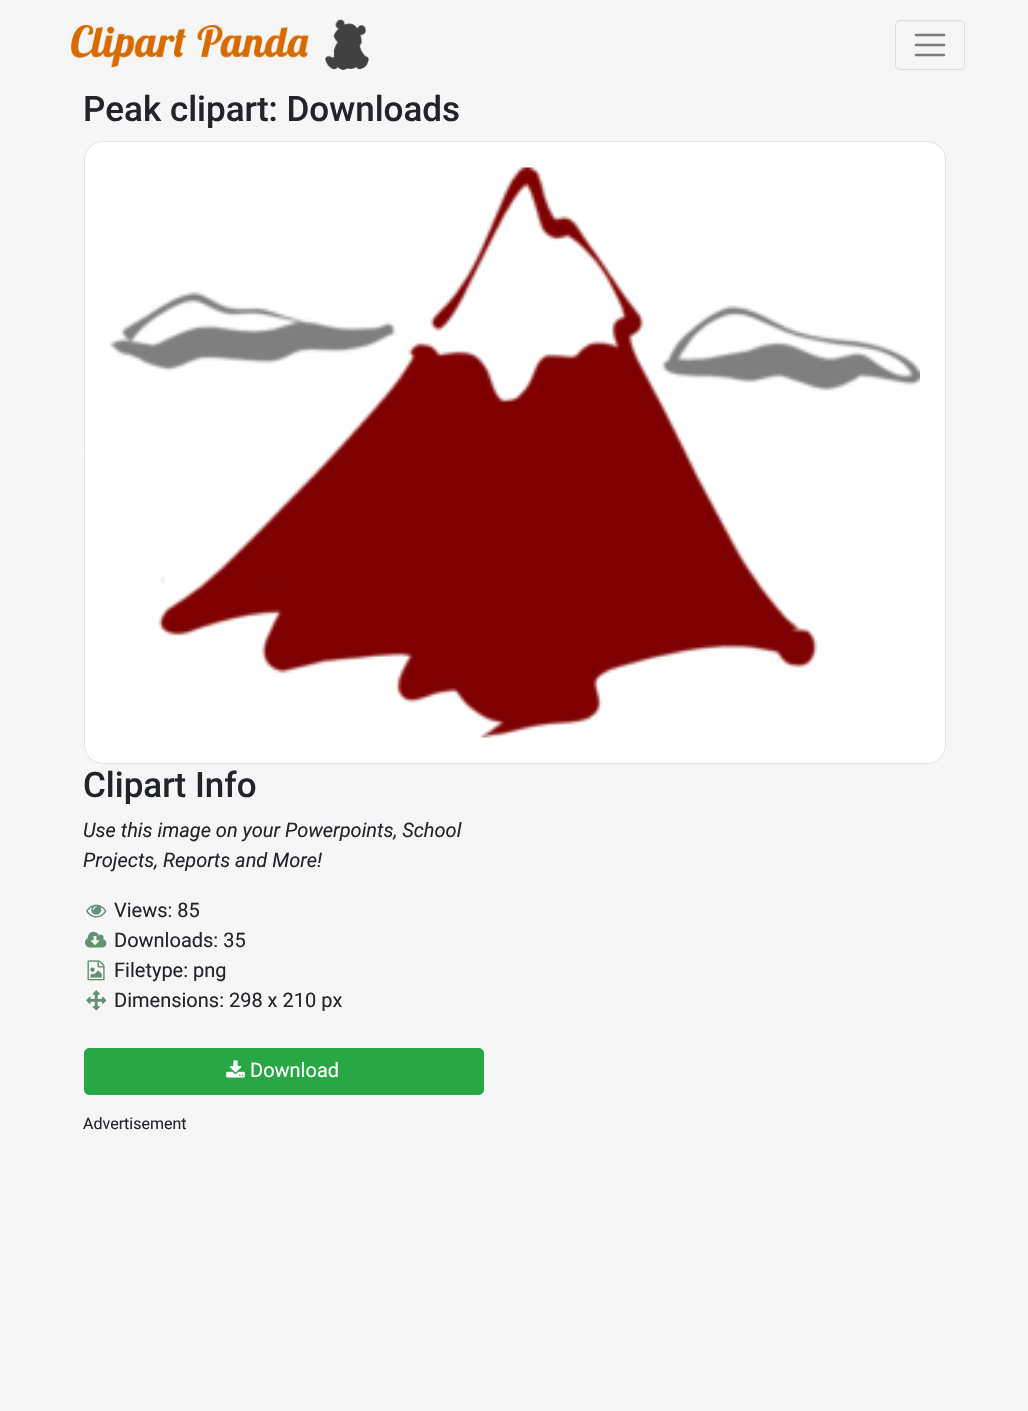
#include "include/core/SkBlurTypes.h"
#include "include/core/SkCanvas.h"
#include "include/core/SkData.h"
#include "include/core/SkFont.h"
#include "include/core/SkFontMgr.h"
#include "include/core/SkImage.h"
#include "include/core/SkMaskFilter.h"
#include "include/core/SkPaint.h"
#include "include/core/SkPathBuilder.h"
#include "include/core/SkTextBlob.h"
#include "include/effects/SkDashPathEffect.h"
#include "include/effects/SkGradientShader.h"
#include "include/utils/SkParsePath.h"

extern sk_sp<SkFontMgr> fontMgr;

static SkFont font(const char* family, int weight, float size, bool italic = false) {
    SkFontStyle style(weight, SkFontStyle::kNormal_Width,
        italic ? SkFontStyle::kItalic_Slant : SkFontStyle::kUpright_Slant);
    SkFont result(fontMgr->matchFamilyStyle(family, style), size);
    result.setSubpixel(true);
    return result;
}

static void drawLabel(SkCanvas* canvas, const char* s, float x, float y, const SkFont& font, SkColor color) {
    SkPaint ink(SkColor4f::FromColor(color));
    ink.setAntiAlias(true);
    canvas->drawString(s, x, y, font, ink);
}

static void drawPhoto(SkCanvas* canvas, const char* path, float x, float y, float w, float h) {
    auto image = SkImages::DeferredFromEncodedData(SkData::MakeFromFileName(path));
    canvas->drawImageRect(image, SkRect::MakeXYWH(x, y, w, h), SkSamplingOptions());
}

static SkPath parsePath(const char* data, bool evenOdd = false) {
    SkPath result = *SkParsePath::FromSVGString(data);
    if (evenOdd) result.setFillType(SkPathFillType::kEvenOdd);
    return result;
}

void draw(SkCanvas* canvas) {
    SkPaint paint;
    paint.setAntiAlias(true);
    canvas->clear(0xFFF6F6F6);
    drawPhoto(canvas, "assets/img1.png", 71, 19, 298, 51);
    paint.setStroke(true);
    paint.setStrokeWidth(1);
    paint.setColor(0xFFDDDDDD);
    canvas->drawRoundRect(SkRect::MakeXYWH(895.5f, 20.5f, 69, 49), 4.5f, 4.5f, paint);
    paint.setStrokeWidth(2.5f);
    paint.setStrokeCap(SkPaint::kRound_Cap);
    paint.setColor(0xFF7B7B7B);
    canvas->drawPath(parsePath("M916 35H944M916 45H944M916 55H944"), paint);
    SkFont font1 = font("Roboto", 500, 35);
    drawLabel(canvas, "Peak clipart: Downloads", 83, 121, font1, 0xFF212529);
    paint.setStroke(false);
    paint.setColor(0xFFFFFFFF);
    canvas->drawRoundRect(SkRect::MakeXYWH(84.5f, 141.5f, 861, 622), 18.5f, 18.5f, paint);
    paint.setStroke(true);
    paint.setStrokeWidth(1);
    paint.setStrokeCap(SkPaint::kButt_Cap);
    paint.setColor(0xFFE3E3E3);
    canvas->drawRoundRect(SkRect::MakeXYWH(84.5f, 141.5f, 861, 622), 18.5f, 18.5f, paint);
    drawPhoto(canvas, "assets/img2.png", 110, 167, 810, 571);
    drawLabel(canvas, "Clipart Info", 83, 797, font1, 0xFF212529);
    SkFont font2 = font("Roboto", 400, 20, true);
    drawLabel(canvas, "Use this image on your Powerpoints, School", 83, 837, font2, 0xFF212529);
    drawLabel(canvas, "Projects, Reports and More!", 83, 867, font2, 0xFF212529);
    drawPhoto(canvas, "assets/img3.png", 86, 904, 21, 14);
    SkFont font3 = font("Roboto", 400, 20);
    drawLabel(canvas, "Views: 85", 114, 917, font3, 0xFF212529);
    drawPhoto(canvas, "assets/img4.png", 85, 931, 22, 17);
    drawLabel(canvas, "Downloads: 35", 114, 947, font3, 0xFF212529);
    drawPhoto(canvas, "assets/img5.png", 87, 960, 18, 21);
    drawLabel(canvas, "Filetype: png", 114, 977, font3, 0xFF212529);
    drawPhoto(canvas, "assets/img6.png", 86, 990, 21, 21);
    drawLabel(canvas, "Dimensions: 298 x 210 px", 114, 1007, font3, 0xFF212529);
    paint.setStroke(false);
    paint.setColor(0xFF28A745);
    canvas->drawRoundRect(SkRect::MakeXYWH(84.5f, 1048.5f, 399, 46), 4.5f, 4.5f, paint);
    paint.setStroke(true);
    canvas->drawRoundRect(SkRect::MakeXYWH(84.5f, 1048.5f, 399, 46), 4.5f, 4.5f, paint);
    drawPhoto(canvas, "assets/img7.png", 226, 1060, 19, 18);
    drawLabel(canvas, "Download", 250, 1077, font3, 0xFFFFFFFF);
    SkFont font4 = font("Roboto", 400, 16);
    drawLabel(canvas, "Advertisement", 83, 1129, font4, 0xFF212529);
}
